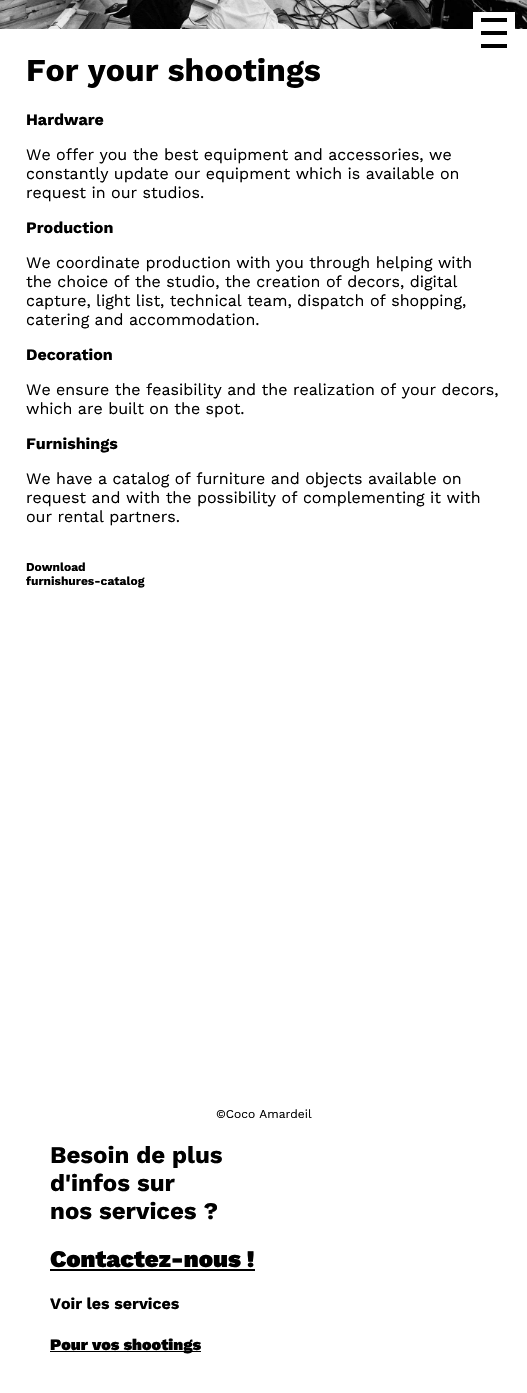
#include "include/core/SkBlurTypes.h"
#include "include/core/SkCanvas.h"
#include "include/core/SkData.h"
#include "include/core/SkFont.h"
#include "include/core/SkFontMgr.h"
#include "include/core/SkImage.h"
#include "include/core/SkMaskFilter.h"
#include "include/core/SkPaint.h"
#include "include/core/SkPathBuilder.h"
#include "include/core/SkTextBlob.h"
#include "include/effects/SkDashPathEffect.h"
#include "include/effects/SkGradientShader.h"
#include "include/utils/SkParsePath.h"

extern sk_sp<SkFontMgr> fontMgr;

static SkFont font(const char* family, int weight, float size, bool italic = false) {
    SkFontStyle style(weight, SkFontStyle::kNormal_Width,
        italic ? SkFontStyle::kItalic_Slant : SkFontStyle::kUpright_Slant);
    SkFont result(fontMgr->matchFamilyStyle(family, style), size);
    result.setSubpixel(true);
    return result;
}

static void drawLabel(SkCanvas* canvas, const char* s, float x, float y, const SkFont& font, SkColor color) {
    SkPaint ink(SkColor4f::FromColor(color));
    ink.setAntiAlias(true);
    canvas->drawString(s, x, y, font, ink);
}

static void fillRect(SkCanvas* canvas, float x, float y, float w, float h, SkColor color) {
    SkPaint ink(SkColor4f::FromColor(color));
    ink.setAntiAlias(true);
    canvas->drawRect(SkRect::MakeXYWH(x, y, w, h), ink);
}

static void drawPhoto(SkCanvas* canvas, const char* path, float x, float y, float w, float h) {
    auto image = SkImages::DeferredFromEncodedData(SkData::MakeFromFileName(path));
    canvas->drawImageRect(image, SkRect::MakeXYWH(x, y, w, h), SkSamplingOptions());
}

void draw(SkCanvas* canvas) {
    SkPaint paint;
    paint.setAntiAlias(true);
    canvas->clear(0xFFFFFFFF);
    drawPhoto(canvas, "assets/img1.png", 0, 0, 527, 29);
    fillRect(canvas, 473, 12, 42, 17, 0xFFFFFFFF);
    fillRect(canvas, 481, 18, 26, 4, 0xFF010101);
    fillRect(canvas, 481, 31, 26, 4, 0xFF010101);
    fillRect(canvas, 481, 44, 26, 4, 0xFF010101);
    SkFont font1 = font("Work Sans", 700, 32);
    drawLabel(canvas, "For your shootings", 26, 81, font1, 0xFF000000);
    SkFont font2 = font("Work Sans", 700, 16);
    drawLabel(canvas, "Hardware", 26, 125, font2, 0xFF000000);
    SkFont font3 = font("Work Sans", 400, 16);
    drawLabel(canvas, "We offer you the best equipment and accessories, we", 26, 160, font3, 0xFF000000);
    drawLabel(canvas, "constantly update our equipment which is available on", 26, 179, font3, 0xFF000000);
    drawLabel(canvas, "request in our studios.", 26, 198, font3, 0xFF000000);
    drawLabel(canvas, "Production", 26, 233, font2, 0xFF000000);
    drawLabel(canvas, "We coordinate production with you through helping with", 26, 268, font3, 0xFF000000);
    drawLabel(canvas, "the choice of the studio, the creation of decors, digital", 26, 287, font3, 0xFF000000);
    drawLabel(canvas, "capture, light list, technical team, dispatch of shopping,", 26, 306, font3, 0xFF000000);
    drawLabel(canvas, "catering and accommodation.", 26, 325, font3, 0xFF000000);
    drawLabel(canvas, "Decoration", 26, 360, font2, 0xFF000000);
    drawLabel(canvas, "We ensure the feasibility and the realization of your decors,", 26, 395, font3, 0xFF000000);
    drawLabel(canvas, "which are built on the spot.", 26, 414, font3, 0xFF000000);
    drawLabel(canvas, "Furnishings", 26, 449, font2, 0xFF000000);
    drawLabel(canvas, "We have a catalog of furniture and objects available on", 26, 484, font3, 0xFF000000);
    drawLabel(canvas, "request and with the possibility of complementing it with", 26, 503, font3, 0xFF000000);
    drawLabel(canvas, "our rental partners.", 26, 522, font3, 0xFF000000);
    SkFont font4 = font("Work Sans", 700, 12);
    drawLabel(canvas, "Download", 26, 571, font4, 0xFF000000);
    drawLabel(canvas, "furnishures-catalog", 26, 585, font4, 0xFF000000);
    SkFont font5 = font("Work Sans", 400, 12);
    drawLabel(canvas, "©Coco Amardeil", 216, 1118, font5, 0xFF000000);
    SkFont font6 = font("Work Sans", 700, 24);
    drawLabel(canvas, "Besoin de plus", 50, 1163, font6, 0xFF000000);
    drawLabel(canvas, "d'infos sur", 50, 1191, font6, 0xFF000000);
    drawLabel(canvas, "nos services ?", 50, 1219, font6, 0xFF000000);
    SkFont font7 = font("Work Sans", 900, 24);
    drawLabel(canvas, "Contactez-nous !", 50, 1267, font7, 0xFF000000);
    fillRect(canvas, 50, 1269, 205, 2, 0xFF000000);
    drawLabel(canvas, "Voir les services", 50, 1309, font2, 0xFF000000);
    fillRect(canvas, 50, 1351, 151, 1, 0xFF000000);
    SkFont font8 = font("Work Sans", 900, 16);
    drawLabel(canvas, "Pour vos shootings", 50, 1350, font8, 0xFF000000);
}
